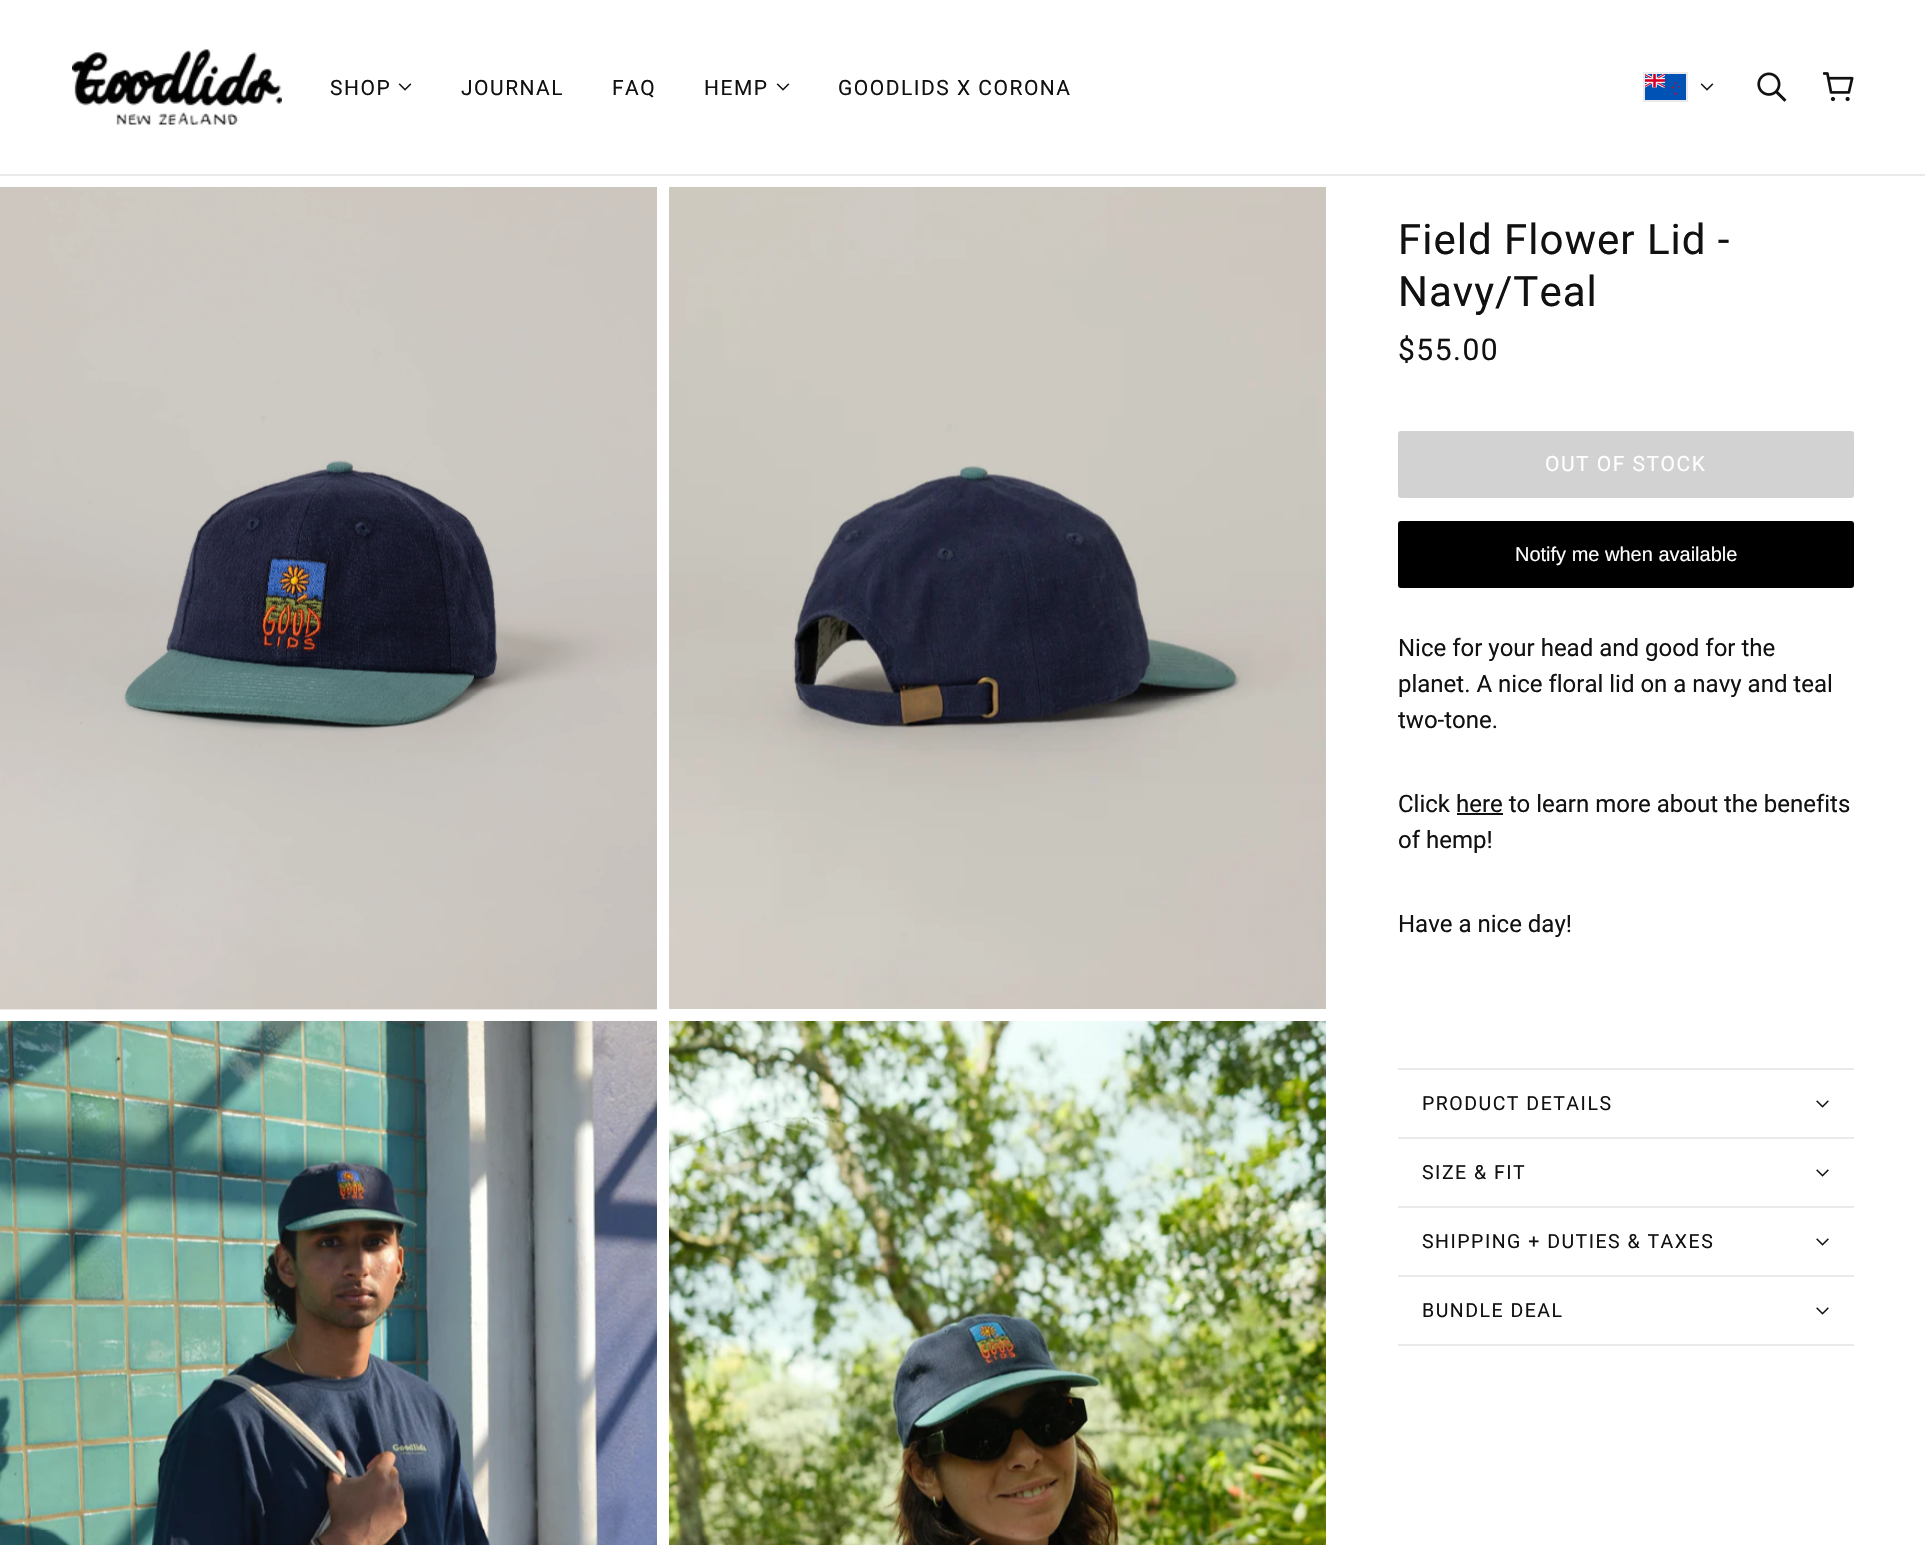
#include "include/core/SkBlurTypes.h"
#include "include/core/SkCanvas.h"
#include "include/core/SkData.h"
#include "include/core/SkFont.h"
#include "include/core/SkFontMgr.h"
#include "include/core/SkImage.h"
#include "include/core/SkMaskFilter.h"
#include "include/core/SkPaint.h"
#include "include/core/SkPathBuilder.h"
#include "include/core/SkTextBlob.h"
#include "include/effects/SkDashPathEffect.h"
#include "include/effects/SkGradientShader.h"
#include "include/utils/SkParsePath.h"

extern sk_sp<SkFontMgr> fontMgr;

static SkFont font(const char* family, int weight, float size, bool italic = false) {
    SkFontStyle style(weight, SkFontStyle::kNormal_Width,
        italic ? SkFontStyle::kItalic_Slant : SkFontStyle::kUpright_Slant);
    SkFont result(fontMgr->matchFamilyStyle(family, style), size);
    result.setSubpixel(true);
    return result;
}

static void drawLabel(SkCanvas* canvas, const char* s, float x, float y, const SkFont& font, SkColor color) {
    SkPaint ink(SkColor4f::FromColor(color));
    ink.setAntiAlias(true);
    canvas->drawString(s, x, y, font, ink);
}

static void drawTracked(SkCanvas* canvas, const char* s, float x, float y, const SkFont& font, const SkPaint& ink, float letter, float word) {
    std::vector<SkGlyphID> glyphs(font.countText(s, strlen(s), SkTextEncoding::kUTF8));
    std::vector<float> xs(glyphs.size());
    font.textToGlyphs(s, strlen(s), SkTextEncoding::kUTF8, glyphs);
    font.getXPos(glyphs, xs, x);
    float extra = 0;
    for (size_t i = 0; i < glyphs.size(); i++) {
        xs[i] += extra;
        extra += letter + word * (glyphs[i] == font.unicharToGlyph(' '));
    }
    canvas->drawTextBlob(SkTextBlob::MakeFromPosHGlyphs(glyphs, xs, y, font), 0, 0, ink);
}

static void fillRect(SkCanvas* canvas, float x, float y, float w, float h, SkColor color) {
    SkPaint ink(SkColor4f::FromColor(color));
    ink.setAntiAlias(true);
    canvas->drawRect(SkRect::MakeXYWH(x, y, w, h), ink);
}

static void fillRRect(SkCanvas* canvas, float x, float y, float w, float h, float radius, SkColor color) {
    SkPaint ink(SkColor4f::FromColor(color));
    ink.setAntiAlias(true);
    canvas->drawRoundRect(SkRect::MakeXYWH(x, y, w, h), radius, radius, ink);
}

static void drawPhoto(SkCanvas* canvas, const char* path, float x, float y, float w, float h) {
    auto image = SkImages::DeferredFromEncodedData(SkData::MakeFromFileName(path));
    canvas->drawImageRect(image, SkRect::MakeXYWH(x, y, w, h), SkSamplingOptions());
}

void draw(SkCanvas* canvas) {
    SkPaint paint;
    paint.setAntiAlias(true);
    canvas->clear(0xFFFFFFFF);
    fillRect(canvas, 0, 174, 1925, 2, 0xFFEAEAEA);
    drawPhoto(canvas, "assets/img1.png", 72, 49, 210, 76);
    SkFont font1 = font("Roboto", 400, 21);
    paint.setColor(0xFF111111);
    drawTracked(canvas, "SHOP", 330, 95, font1, paint, 1.5f, 0);
    drawPhoto(canvas, "assets/img2.png", 398, 83, 14, 8);
    drawTracked(canvas, "JOURNAL", 461, 95, font1, paint, 1.5f, 0);
    drawTracked(canvas, "FAQ", 612, 95, font1, paint, 1.5f, 0);
    drawTracked(canvas, "HEMP", 704, 95, font1, paint, 1.5f, 0);
    drawPhoto(canvas, "assets/img2.png", 776, 83, 14, 8);
    drawTracked(canvas, "GOODLIDS X CORONA", 838, 95, font1, paint, 1.5f, 0);
    drawPhoto(canvas, "assets/img3.png", 1645, 74, 41, 26);
    paint.setStroke(true);
    paint.setStrokeWidth(2);
    paint.setColor(0xFFEAEAEA);
    canvas->drawRect(SkRect::MakeXYWH(1644, 73, 43, 28), paint);
    drawPhoto(canvas, "assets/img2.png", 1700, 83, 14, 8);
    drawPhoto(canvas, "assets/img4.png", 1757, 72, 30, 30);
    drawPhoto(canvas, "assets/img5.png", 1823, 72, 31, 30);
    drawPhoto(canvas, "assets/img6.png", 0, 187, 657, 822);
    drawPhoto(canvas, "assets/img7.png", 0, 1009, 657, 1);
    drawPhoto(canvas, "assets/img8.png", 669, 187, 657, 822);
    drawPhoto(canvas, "assets/img9.png", 0, 1021, 657, 524);
    drawPhoto(canvas, "assets/img10.png", 669, 1021, 657, 524);
    SkFont font2 = font("Roboto", 400, 42);
    paint.setStroke(false);
    paint.setColor(0xFF111111);
    drawTracked(canvas, "Field Flower Lid -", 1398, 254, font2, paint, 1, 0);
    drawTracked(canvas, "Navy/Teal", 1398, 306, font2, paint, 1, 0);
    SkFont font3 = font("Roboto", 400, 30);
    drawTracked(canvas, "$55.00", 1398, 360, font3, paint, 1.5f, 0);
    fillRRect(canvas, 1398, 431, 456, 67, 3, 0xFFD2D2D2);
    paint.setColor(0xFFFFFFFF);
    drawTracked(canvas, "OUT OF STOCK", 1545, 471, font1, paint, 1.5f, 0);
    fillRRect(canvas, 1398, 521, 456, 67, 3, 0xFF000000);
    SkFont font4 = font("Liberation Sans", 400, 20);
    drawLabel(canvas, "Notify me when available", 1515, 561, font4, 0xFFFFFFFF);
    SkFont font5 = font("Roboto", 400, 24);
    drawLabel(canvas, "Nice for your head and good for the", 1398, 656, font5, 0xFF111111);
    drawLabel(canvas, "planet. A nice floral lid on a navy and teal", 1398, 692, font5, 0xFF111111);
    drawLabel(canvas, "two-tone.", 1398, 728, font5, 0xFF111111);
    drawLabel(canvas, "Click here to learn more about the benefits", 1398, 812, font5, 0xFF111111);
    fillRect(canvas, 1457, 813, 46, 2, 0xFF111111);
    drawLabel(canvas, "of hemp!", 1398, 848, font5, 0xFF111111);
    drawLabel(canvas, "Have a nice day!", 1398, 932, font5, 0xFF111111);
    fillRect(canvas, 1398, 1068, 456, 2, 0xFFEAEAEA);
    fillRect(canvas, 1398, 1137, 456, 2, 0xFFEAEAEA);
    SkFont font6 = font("Roboto", 400, 19.5f);
    paint.setColor(0xFF111111);
    drawTracked(canvas, "PRODUCT DETAILS", 1422, 1110, font6, paint, 1.5f, 0);
    drawPhoto(canvas, "assets/img11.png", 1816, 1100, 13, 8);
    fillRect(canvas, 1398, 1206, 456, 2, 0xFFEAEAEA);
    drawTracked(canvas, "SIZE & FIT", 1422, 1179, font6, paint, 1.5f, 0);
    drawPhoto(canvas, "assets/img11.png", 1816, 1169, 13, 8);
    fillRect(canvas, 1398, 1275, 456, 2, 0xFFEAEAEA);
    drawTracked(canvas, "SHIPPING + DUTIES & TAXES", 1422, 1248, font6, paint, 1.5f, 0);
    drawPhoto(canvas, "assets/img11.png", 1816, 1238, 13, 8);
    fillRect(canvas, 1398, 1344, 456, 2, 0xFFEAEAEA);
    drawTracked(canvas, "BUNDLE DEAL", 1422, 1317, font6, paint, 1.5f, 0);
    drawPhoto(canvas, "assets/img11.png", 1816, 1307, 13, 8);
}
